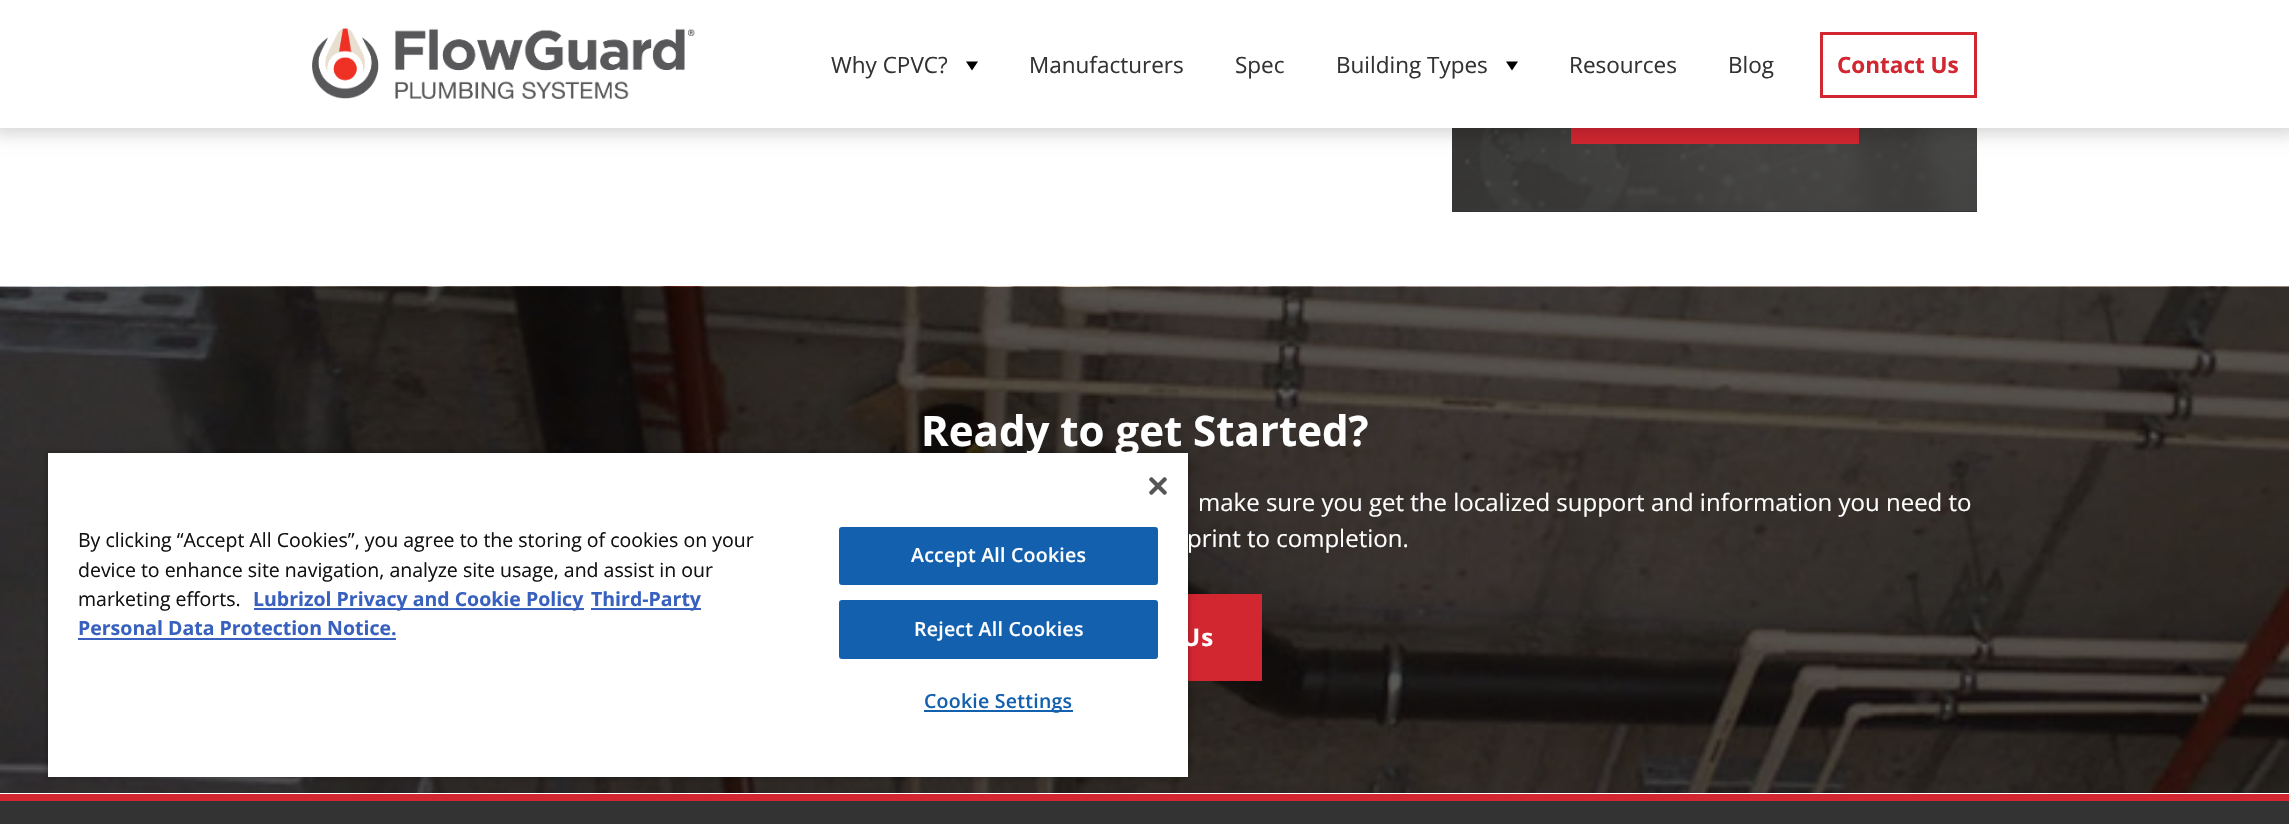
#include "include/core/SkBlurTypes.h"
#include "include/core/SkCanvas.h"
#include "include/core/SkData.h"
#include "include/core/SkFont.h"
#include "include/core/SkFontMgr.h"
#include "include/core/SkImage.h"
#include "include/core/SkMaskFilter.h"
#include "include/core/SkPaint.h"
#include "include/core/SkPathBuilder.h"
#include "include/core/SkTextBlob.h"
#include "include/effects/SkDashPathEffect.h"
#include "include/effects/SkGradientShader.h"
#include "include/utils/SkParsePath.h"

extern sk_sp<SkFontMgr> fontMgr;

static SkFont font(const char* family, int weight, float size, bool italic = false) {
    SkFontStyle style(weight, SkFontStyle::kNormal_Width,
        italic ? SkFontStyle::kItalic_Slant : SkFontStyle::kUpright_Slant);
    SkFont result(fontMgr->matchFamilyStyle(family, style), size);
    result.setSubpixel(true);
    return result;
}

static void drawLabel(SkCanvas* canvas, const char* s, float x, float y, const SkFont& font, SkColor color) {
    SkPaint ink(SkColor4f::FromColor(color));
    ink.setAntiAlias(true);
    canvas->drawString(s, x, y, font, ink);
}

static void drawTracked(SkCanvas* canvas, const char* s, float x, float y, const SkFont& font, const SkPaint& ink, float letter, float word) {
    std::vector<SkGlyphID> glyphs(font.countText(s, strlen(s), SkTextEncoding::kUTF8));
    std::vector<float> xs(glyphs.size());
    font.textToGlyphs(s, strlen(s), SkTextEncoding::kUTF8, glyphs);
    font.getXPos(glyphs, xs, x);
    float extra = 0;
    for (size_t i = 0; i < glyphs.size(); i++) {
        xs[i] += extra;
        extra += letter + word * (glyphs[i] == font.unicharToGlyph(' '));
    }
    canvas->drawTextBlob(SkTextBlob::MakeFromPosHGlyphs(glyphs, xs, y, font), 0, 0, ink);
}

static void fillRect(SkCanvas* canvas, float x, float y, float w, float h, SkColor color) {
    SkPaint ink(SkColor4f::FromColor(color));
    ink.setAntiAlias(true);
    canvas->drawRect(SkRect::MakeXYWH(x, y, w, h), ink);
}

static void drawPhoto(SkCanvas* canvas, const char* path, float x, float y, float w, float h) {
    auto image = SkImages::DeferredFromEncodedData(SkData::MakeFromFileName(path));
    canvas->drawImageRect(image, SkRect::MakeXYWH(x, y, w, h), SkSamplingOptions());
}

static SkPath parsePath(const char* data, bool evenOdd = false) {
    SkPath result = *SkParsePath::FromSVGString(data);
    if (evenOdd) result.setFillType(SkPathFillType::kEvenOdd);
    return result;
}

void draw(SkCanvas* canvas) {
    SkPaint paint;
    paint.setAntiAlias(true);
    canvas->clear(0xFFFFFFFF);
    drawPhoto(canvas, "assets/img4.png", 0, 286, 2289, 507);
    fillRect(canvas, 1188, 594, 74, 87, 0xFFD22631);
    paint.setColor(0x59000000);
    paint.setMaskFilter(SkMaskFilter::MakeBlur(kNormal_SkBlurStyle, 3));
    canvas->drawRect(SkRect::MakeXYWH(48, 453, 1140, 324), paint);
    paint.setMaskFilter(nullptr);
    fillRect(canvas, 48, 453, 1140, 324, 0xFFFFFFFF);
    drawPhoto(canvas, "assets/img1.png", 1149, 477, 18, 18);
    SkFont font1 = font("Open Sans", 400, 19.5f);
    drawLabel(canvas, "By clicking “Accept All Cookies”, you agree to the storing of cookies on your", 78, 547, font1, 0xFF121212);
    drawLabel(canvas, "device to enhance site navigation, analyze site usage, and assist in our", 78, 577, font1, 0xFF121212);
    drawLabel(canvas, "marketing efforts.", 78, 606, font1, 0xFF121212);
    fillRect(canvas, 254, 608, 330, 2, 0xFF3860BE);
    SkFont font2 = font("Open Sans", 700, 19.5f);
    drawLabel(canvas, "Lubrizol Privacy and Cookie Policy", 253, 606, font2, 0xFF3860BE);
    fillRect(canvas, 591, 608, 110, 2, 0xFF3860BE);
    drawLabel(canvas, "Third-Party", 591, 606, font2, 0xFF3860BE);
    drawLabel(canvas, "Personal Data Protection Notice.", 78, 635, font2, 0xFF3860BE);
    fillRect(canvas, 78, 638, 318, 2, 0xFF3860BE);
    paint.setColor(0xFF1361AE);
    canvas->drawRoundRect(SkRect::MakeXYWH(840, 528, 317, 56), 2, 2, paint);
    paint.setStroke(true);
    paint.setStrokeWidth(2);
    canvas->drawRoundRect(SkRect::MakeXYWH(840, 528, 317, 56), 2, 2, paint);
    SkFont font3 = font("Open Sans", 600, 19.5f);
    paint.setStroke(false);
    paint.setColor(0xFFFFFFFF);
    drawTracked(canvas, "Accept All Cookies", 911, 562, font3, paint, 0.25f, 0);
    paint.setColor(0xFF1361AE);
    canvas->drawRoundRect(SkRect::MakeXYWH(840, 601, 317, 57), 2, 2, paint);
    paint.setStroke(true);
    canvas->drawRoundRect(SkRect::MakeXYWH(840, 601, 317, 57), 2, 2, paint);
    paint.setStroke(false);
    paint.setColor(0xFFFFFFFF);
    drawTracked(canvas, "Reject All Cookies", 914, 636, font3, paint, 0.25f, 0);
    fillRect(canvas, 924, 710, 149, 2, 0xFF1361AE);
    paint.setColor(0xFF1361AE);
    drawTracked(canvas, "Cookie Settings", 924, 708, font3, paint, 0.25f, 0);
    fillRect(canvas, 1452, 128, 525, 84, 0xFF333333);
    drawPhoto(canvas, "assets/img3.png", 1452, 128, 525, 83);
    fillRect(canvas, 1571, 128, 288, 16, 0xFFD22631);
    paint.setColor(0x26000000);
    paint.setMaskFilter(SkMaskFilter::MakeBlur(kNormal_SkBlurStyle, 7.5f));
    canvas->drawRect(SkRect::MakeXYWH(-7, -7, 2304, 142), paint);
    paint.setMaskFilter(nullptr);
    fillRect(canvas, 0, 0, 2289, 128, 0xFFFFFFFF);
    drawPhoto(canvas, "assets/img2.png", 312, 28, 383, 71);
    SkFont font4 = font("Open Sans", 400, 22.5f);
    drawLabel(canvas, "Why CPVC?", 831, 73, font4, 0xFF333333);
    paint.setColor(0xFF000000);
    canvas->drawPath(parsePath("M966 61.5H978L972 70.5Z"), paint);
    drawLabel(canvas, "Manufacturers", 1029, 73, font4, 0xFF333333);
    drawLabel(canvas, "Spec", 1235, 73, font4, 0xFF333333);
    drawLabel(canvas, "Building Types", 1336, 73, font4, 0xFF333333);
    canvas->drawPath(parsePath("M1506 61.5H1518L1512 70.5Z"), paint);
    drawLabel(canvas, "Resources", 1569, 73, font4, 0xFF333333);
    drawLabel(canvas, "Blog", 1728, 73, font4, 0xFF333333);
    paint.setStroke(true);
    paint.setStrokeWidth(3);
    paint.setColor(0xFFD22631);
    canvas->drawRect(SkRect::MakeXYWH(1821.5f, 33.5f, 154, 63), paint);
    SkFont font5 = font("Open Sans", 700, 22.5f);
    drawLabel(canvas, "Contact Us", 1837, 73, font5, 0xFFD22631);
    SkFont font6 = font("Open Sans", 700, 42);
    drawLabel(canvas, "Ready to get Started?", 921, 446, font6, 0xFFFFFFFF);
    SkFont font7 = font("Open Sans", 400, 24);
    drawLabel(canvas, "make sure you get the localized support and information you need to", 1198, 511, font7, 0xFFFFFFFF);
    drawLabel(canvas, "print to completion.", 1187, 547, font7, 0xFFFFFFFF);
    SkFont font8 = font("Open Sans", 700, 24);
    paint.setStroke(false);
    paint.setColor(0xFFFFFFFF);
    drawTracked(canvas, "Us", 1182, 646, font8, paint, 1, 0);
    fillRect(canvas, 0, 801, 2289, 23, 0xFF333333);
    fillRect(canvas, 0, 794, 2289, 7, 0xFFD22631);
}
